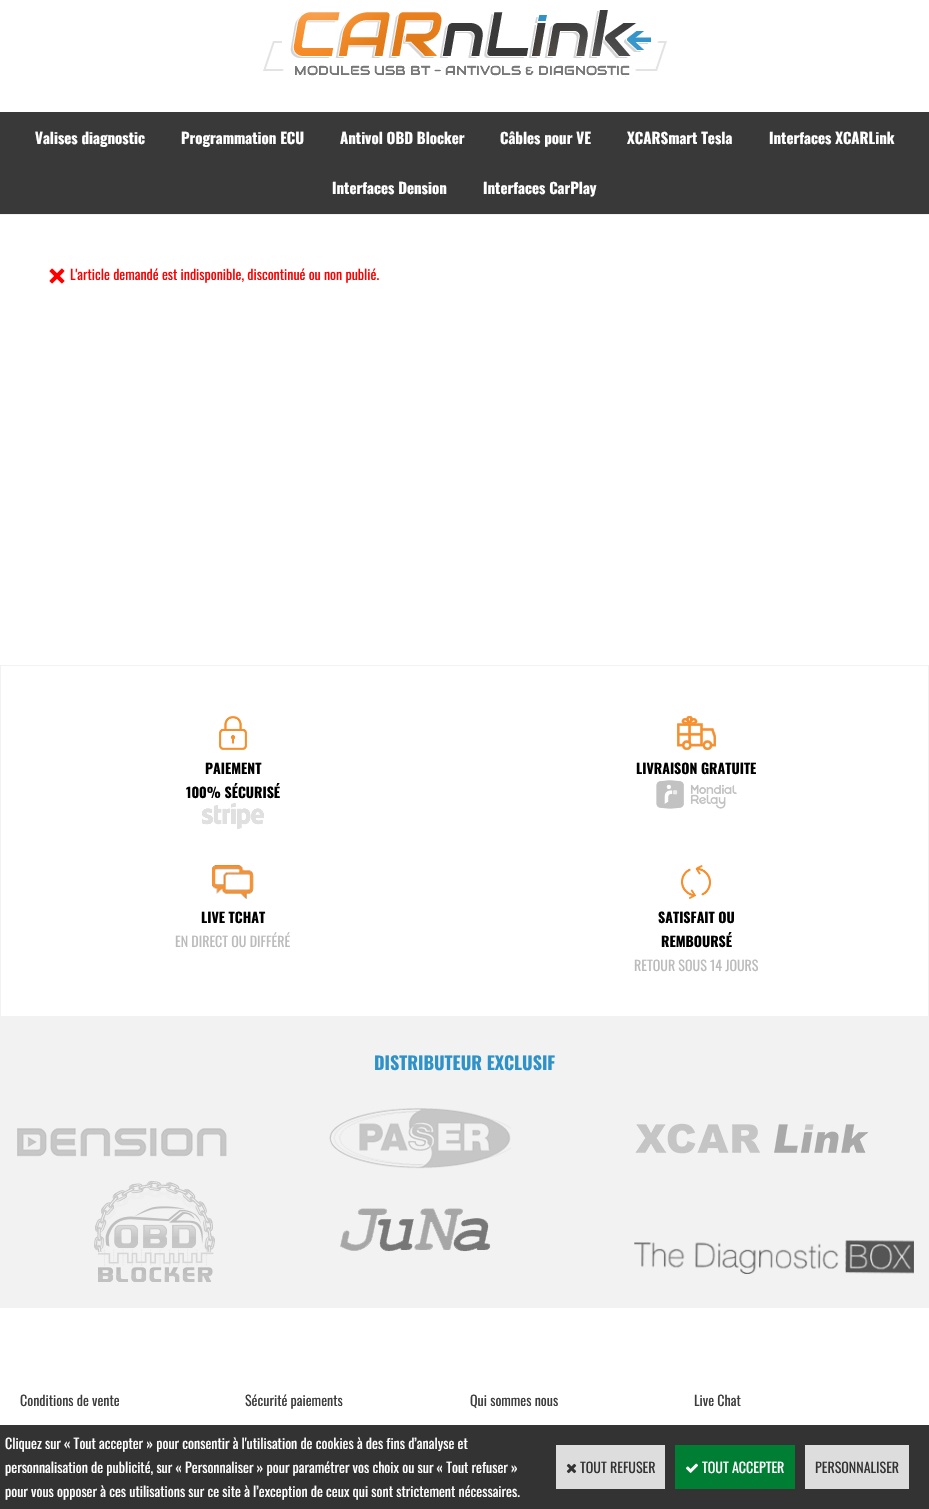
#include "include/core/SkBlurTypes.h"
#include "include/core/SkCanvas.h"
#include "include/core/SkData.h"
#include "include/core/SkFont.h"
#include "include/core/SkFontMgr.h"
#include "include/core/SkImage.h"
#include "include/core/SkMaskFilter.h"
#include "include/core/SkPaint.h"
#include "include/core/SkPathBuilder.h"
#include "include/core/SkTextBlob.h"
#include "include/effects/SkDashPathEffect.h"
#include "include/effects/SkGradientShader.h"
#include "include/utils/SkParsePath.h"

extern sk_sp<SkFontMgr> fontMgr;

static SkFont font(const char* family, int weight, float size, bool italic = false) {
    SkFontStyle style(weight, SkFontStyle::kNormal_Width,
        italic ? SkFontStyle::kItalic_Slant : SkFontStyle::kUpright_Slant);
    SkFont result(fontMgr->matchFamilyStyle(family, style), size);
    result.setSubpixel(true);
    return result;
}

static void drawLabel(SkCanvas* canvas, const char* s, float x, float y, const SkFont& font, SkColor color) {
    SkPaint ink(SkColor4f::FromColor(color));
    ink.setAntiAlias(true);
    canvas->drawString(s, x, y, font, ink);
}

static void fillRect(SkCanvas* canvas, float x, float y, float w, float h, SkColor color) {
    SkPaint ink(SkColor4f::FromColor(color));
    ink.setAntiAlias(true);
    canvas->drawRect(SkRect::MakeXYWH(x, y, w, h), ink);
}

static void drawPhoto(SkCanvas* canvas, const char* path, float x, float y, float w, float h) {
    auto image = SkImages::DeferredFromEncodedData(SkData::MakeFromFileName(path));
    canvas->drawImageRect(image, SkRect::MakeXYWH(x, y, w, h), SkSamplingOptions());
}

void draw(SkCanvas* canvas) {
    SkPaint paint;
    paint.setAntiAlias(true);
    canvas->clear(0xFFFFFFFF);
    fillRect(canvas, 0, 214, 929, 1, 0xFFF1F1F1);
    drawPhoto(canvas, "assets/img1.png", 263, 10, 404, 68);
    fillRect(canvas, 0, 112, 929, 102, 0xFF393939);
    SkFont font1 = font("Oswald", 700, 15);
    drawLabel(canvas, "Valises diagnostic", 35, 144, font1, 0xFFFFFFFF);
    drawLabel(canvas, "Programmation ECU", 181, 144, font1, 0xFFFFFFFF);
    drawLabel(canvas, "Antivol OBD Blocker", 340, 144, font1, 0xFFFFFFFF);
    drawLabel(canvas, "Câbles pour VE", 500, 144, font1, 0xFFFFFFFF);
    drawLabel(canvas, "XCARSmart Tesla", 627, 144, font1, 0xFFFFFFFF);
    drawLabel(canvas, "Interfaces XCARLink", 769, 144, font1, 0xFFFFFFFF);
    drawLabel(canvas, "Interfaces Dension", 332, 194, font1, 0xFFFFFFFF);
    drawLabel(canvas, "Interfaces CarPlay", 483, 194, font1, 0xFFFFFFFF);
    drawPhoto(canvas, "assets/img2.png", 49, 268, 16, 16);
    SkFont font2 = font("Oswald", 400, 14);
    drawLabel(canvas, "L'article demandé est indisponible, discontinué ou non publié.", 70, 280, font2, 0xFFFF0000);
    paint.setStroke(true);
    paint.setStrokeWidth(1);
    paint.setColor(0xFFF2F2F2);
    canvas->drawRect(SkRect::MakeXYWH(0.5f, 665.5f, 928, 351), paint);
    drawPhoto(canvas, "assets/img3.png", 219, 716, 28, 34);
    SkFont font3 = font("Oswald", 700, 14);
    drawLabel(canvas, "PAIEMENT", 205, 774, font3, 0xFF000000);
    drawLabel(canvas, "100% SÉCURISÉ", 186, 798, font3, 0xFF000000);
    drawPhoto(canvas, "assets/img4.png", 202, 803, 62, 26);
    drawPhoto(canvas, "assets/img5.png", 677, 716, 39, 34);
    drawLabel(canvas, "LIVRAISON GRATUITE", 636, 774, font3, 0xFF000000);
    drawPhoto(canvas, "assets/img6.png", 656, 780, 81, 29);
    drawPhoto(canvas, "assets/img7.png", 212, 865, 42, 34);
    drawLabel(canvas, "LIVE TCHAT", 201, 923, font3, 0xFF000000);
    drawLabel(canvas, "EN DIRECT OU DIFFÉRÉ", 175, 947, font2, 0xFFBBBBBB);
    drawPhoto(canvas, "assets/img8.png", 681, 865, 30, 34);
    drawLabel(canvas, "SATISFAIT OU", 658, 923, font3, 0xFF000000);
    drawLabel(canvas, "REMBOURSÉ", 661, 947, font3, 0xFF000000);
    drawLabel(canvas, "RETOUR SOUS 14 JOURS", 634, 971, font2, 0xFFBBBBBB);
    fillRect(canvas, 0, 1017, 929, 291, 0xFFF2F2F2);
    SkFont font4 = font("Oswald", 700, 18);
    drawLabel(canvas, "DISTRIBUTEUR EXCLUSIF", 374, 1070, font4, 0xFF2E91C8);
    drawPhoto(canvas, "assets/img9.png", 17, 1128, 210, 29);
    drawPhoto(canvas, "assets/img10.png", 329, 1108, 182, 61);
    drawPhoto(canvas, "assets/img11.png", 635, 1123, 234, 31);
    drawPhoto(canvas, "assets/img12.png", 94, 1181, 121, 101);
    drawPhoto(canvas, "assets/img13.png", 340, 1208, 151, 44);
    drawPhoto(canvas, "assets/img14.png", 634, 1240, 280, 34);
    drawLabel(canvas, "Conditions de vente", 20, 1406, font2, 0xFF3D3D3D);
    drawLabel(canvas, "Sécurité paiements", 245, 1406, font2, 0xFF3D3D3D);
    drawLabel(canvas, "Qui sommes nous", 470, 1406, font2, 0xFF3D3D3D);
    drawLabel(canvas, "Live Chat", 694, 1406, font2, 0xFF3D3D3D);
    fillRect(canvas, 0, 1425, 929, 84, 0xFF333333);
    drawLabel(canvas, "Cliquez sur « Tout accepter » pour consentir à l'utilisation de cookies à des fins d’analyse et", 5, 1449, font2, 0xFFFFFFFF);
    drawLabel(canvas, "personnalisation de publicité, sur « Personnaliser » pour paramétrer vos choix ou sur « Tout refuser »", 5, 1473, font2, 0xFFFFFFFF);
    drawLabel(canvas, "pour vous opposer à ces utilisations sur ce site à l’exception de ceux qui sont strictement nécessaires.", 5, 1497, font2, 0xFFFFFFFF);
    fillRect(canvas, 556, 1445, 109, 44, 0xFFDDDDDD);
    drawPhoto(canvas, "assets/img15.png", 566, 1463, 11, 11);
    drawLabel(canvas, "TOUT REFUSER", 580, 1473, font2, 0xFF333333);
    fillRect(canvas, 675, 1445, 120, 44, 0xFF007E33);
    drawPhoto(canvas, "assets/img16.png", 686, 1463, 12, 10);
    drawLabel(canvas, "TOUT ACCEPTER", 702, 1473, font2, 0xFFFFFFFF);
    fillRect(canvas, 805, 1445, 104, 44, 0xFFDDDDDD);
    drawLabel(canvas, "PERSONNALISER", 815, 1473, font2, 0xFF333333);
}
